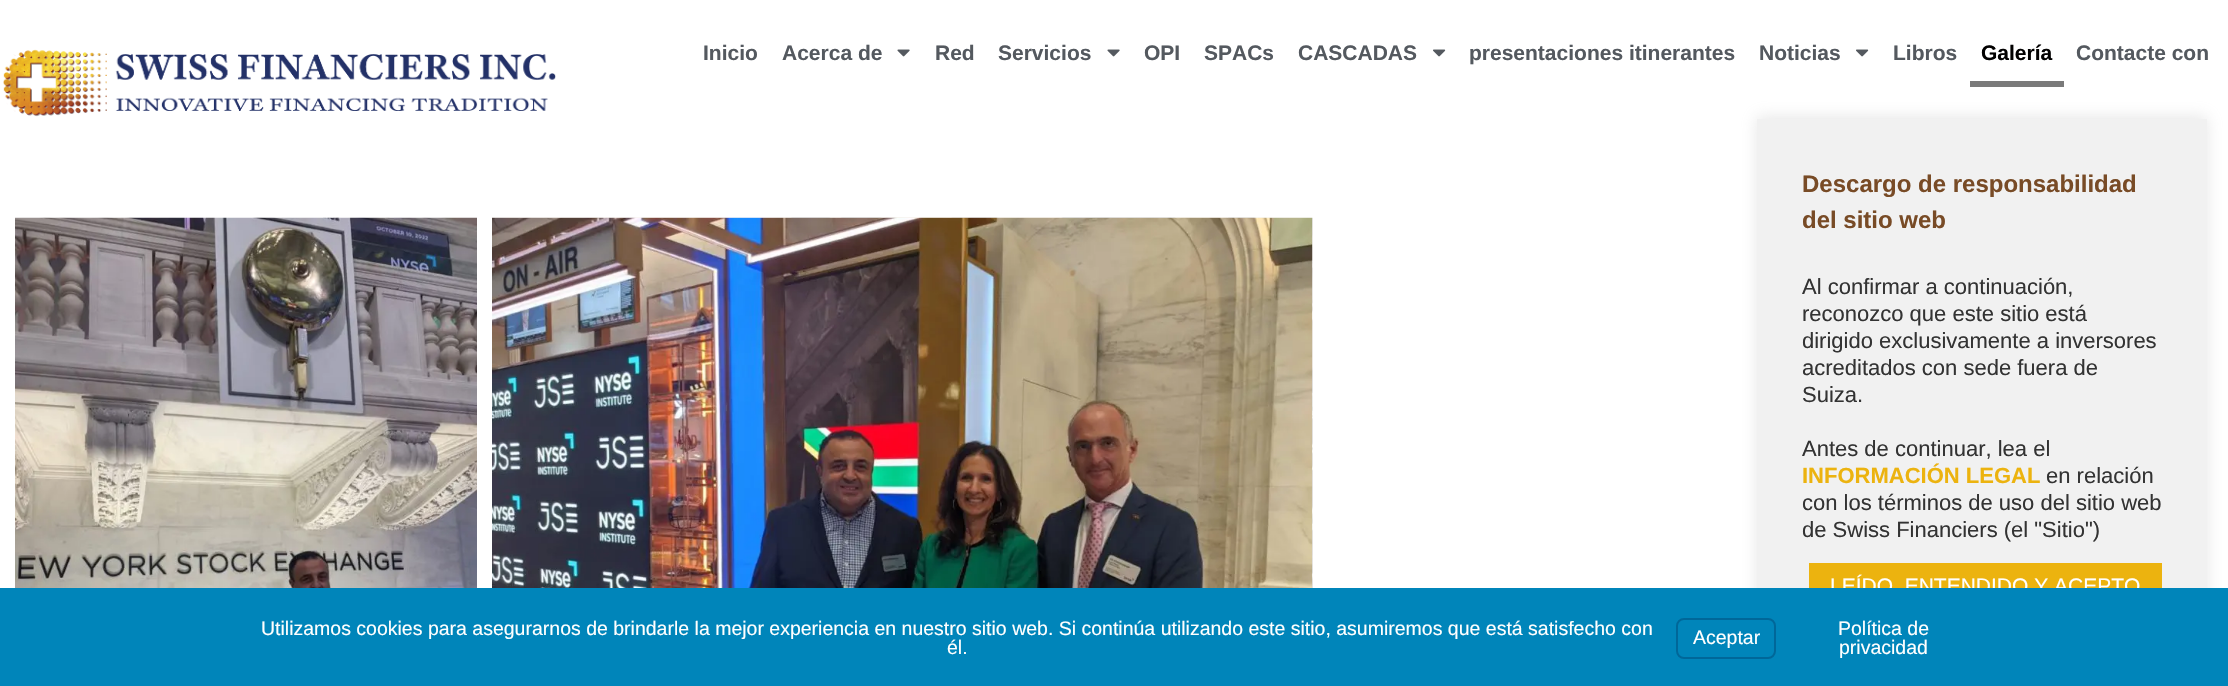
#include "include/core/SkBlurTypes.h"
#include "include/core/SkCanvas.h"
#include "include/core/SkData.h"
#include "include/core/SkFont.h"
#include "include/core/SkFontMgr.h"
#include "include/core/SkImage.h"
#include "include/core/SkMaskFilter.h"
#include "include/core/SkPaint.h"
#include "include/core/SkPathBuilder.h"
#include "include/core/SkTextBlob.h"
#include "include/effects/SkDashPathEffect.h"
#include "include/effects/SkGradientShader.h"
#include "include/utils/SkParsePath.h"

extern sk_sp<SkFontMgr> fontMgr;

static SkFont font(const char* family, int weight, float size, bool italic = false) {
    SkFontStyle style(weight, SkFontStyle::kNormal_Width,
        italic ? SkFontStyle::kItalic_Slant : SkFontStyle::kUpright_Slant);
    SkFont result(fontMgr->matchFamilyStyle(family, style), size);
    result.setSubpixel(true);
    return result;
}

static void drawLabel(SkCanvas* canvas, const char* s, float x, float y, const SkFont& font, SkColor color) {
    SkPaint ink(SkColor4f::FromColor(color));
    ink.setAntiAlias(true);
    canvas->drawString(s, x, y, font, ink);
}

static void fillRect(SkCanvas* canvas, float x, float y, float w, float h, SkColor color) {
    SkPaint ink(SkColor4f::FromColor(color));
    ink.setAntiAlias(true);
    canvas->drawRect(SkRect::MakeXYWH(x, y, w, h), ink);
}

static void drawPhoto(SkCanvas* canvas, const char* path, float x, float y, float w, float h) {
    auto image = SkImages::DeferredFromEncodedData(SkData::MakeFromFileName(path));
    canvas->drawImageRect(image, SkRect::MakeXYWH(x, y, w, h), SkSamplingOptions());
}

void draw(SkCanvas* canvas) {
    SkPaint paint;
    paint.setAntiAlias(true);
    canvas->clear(0xFFFFFFFF);
    drawPhoto(canvas, "assets/img1.png", 3, 49, 553, 68);
    SkFont font1 = font("Liberation Sans", 700, 21);
    drawLabel(canvas, "Inicio", 703, 60, font1, 0xFF54595F);
    drawLabel(canvas, "Acerca de", 782, 60, font1, 0xFF54595F);
    drawPhoto(canvas, "assets/img2.png", 897, 49, 13, 8);
    drawLabel(canvas, "Red", 935, 60, font1, 0xFF54595F);
    drawLabel(canvas, "Servicios", 998, 60, font1, 0xFF54595F);
    drawPhoto(canvas, "assets/img2.png", 1107, 49, 13, 8);
    drawLabel(canvas, "OPI", 1144, 60, font1, 0xFF54595F);
    drawLabel(canvas, "SPACs", 1204, 60, font1, 0xFF54595F);
    drawLabel(canvas, "CASCADAS", 1298, 60, font1, 0xFF54595F);
    drawPhoto(canvas, "assets/img3.png", 1433, 49, 13, 8);
    drawLabel(canvas, "presentaciones itinerantes", 1469, 60, font1, 0xFF54595F);
    drawLabel(canvas, "Noticias", 1759, 60, font1, 0xFF54595F);
    drawPhoto(canvas, "assets/img3.png", 1856, 49, 13, 8);
    drawLabel(canvas, "Libros", 1893, 60, font1, 0xFF54595F);
    drawLabel(canvas, "Galería", 1981, 60, font1, 0xFF020101);
    fillRect(canvas, 1970, 81, 94, 6, 0xFF7A7A7A);
    drawLabel(canvas, "Contacte con", 2076, 60, font1, 0xFF54595F);
    drawPhoto(canvas, "assets/img4.png", 15, 217, 462, 371);
    drawPhoto(canvas, "assets/img5.png", 492, 217, 821, 371);
    paint.setColor(0x4DACABAB);
    paint.setMaskFilter(SkMaskFilter::MakeBlur(kNormal_SkBlurStyle, 7.5f));
    canvas->drawRect(SkRect::MakeXYWH(1757, 117, 450, 546), paint);
    paint.setMaskFilter(nullptr);
    fillRect(canvas, 1757, 119, 450, 469, 0xFFF1F1F1);
    SkFont font2 = font("Liberation Sans", 700, 24);
    drawLabel(canvas, "Descargo de responsabilidad", 1802, 192, font2, 0xFF784B26);
    drawLabel(canvas, "del sitio web", 1802, 228, font2, 0xFF784B26);
    SkFont font3 = font("Liberation Sans", 400, 22);
    drawLabel(canvas, "Al confirmar a continuación,", 1802, 294, font3, 0xFF333333);
    drawLabel(canvas, "reconozco que este sitio está", 1802, 321, font3, 0xFF333333);
    drawLabel(canvas, "dirigido exclusivamente a inversores", 1802, 348, font3, 0xFF333333);
    drawLabel(canvas, "acreditados con sede fuera de", 1802, 375, font3, 0xFF333333);
    drawLabel(canvas, "Suiza.", 1802, 402, font3, 0xFF333333);
    drawLabel(canvas, "Antes de continuar, lea el", 1802, 456, font3, 0xFF333333);
    SkFont font4 = font("Liberation Sans", 700, 22);
    drawLabel(canvas, "INFORMACIÓN LEGAL", 1802, 483, font4, 0xFFECB30F);
    drawLabel(canvas, "en relación", 2046, 483, font3, 0xFF333333);
    drawLabel(canvas, "con los términos de uso del sitio web", 1802, 510, font3, 0xFF333333);
    drawLabel(canvas, "de Swiss Financiers (el \"Sitio\")", 1802, 537, font3, 0xFF333333);
    fillRect(canvas, 1809, 563, 353, 25, 0xFFECB30F);
    SkFont font5 = font("Liberation Sans", 400, 21);
    drawLabel(canvas, "LEÍDO, ENTENDIDO Y ACEPTO", 1830, 593, font5, 0xFFFFFFFF);
    fillRect(canvas, 0, 588, 2228, 98, 0xFF0085BA);
    SkFont font6 = font("Liberation Sans", 400, 19.5f);
    drawLabel(canvas, "Utilizamos cookies para asegurarnos de brindarle la mejor experiencia en nuestro sitio web. Si continúa utilizando este sitio, asumiremos que está satisfecho con", 261, 635, font6, 0xFFFFFFFF);
    drawLabel(canvas, "él.", 947, 654, font6, 0xFFFFFFFF);
    paint.setStroke(true);
    paint.setStrokeWidth(2);
    paint.setColor(0xFF006799);
    canvas->drawRoundRect(SkRect::MakeXYWH(1677, 619, 98, 39), 7, 7, paint);
    drawLabel(canvas, "Aceptar", 1693, 644, font6, 0xFFFFFFFF);
    drawLabel(canvas, "Política de", 1838, 635, font6, 0xFFFFFFFF);
    drawLabel(canvas, "privacidad", 1839, 654, font6, 0xFFFFFFFF);
}
